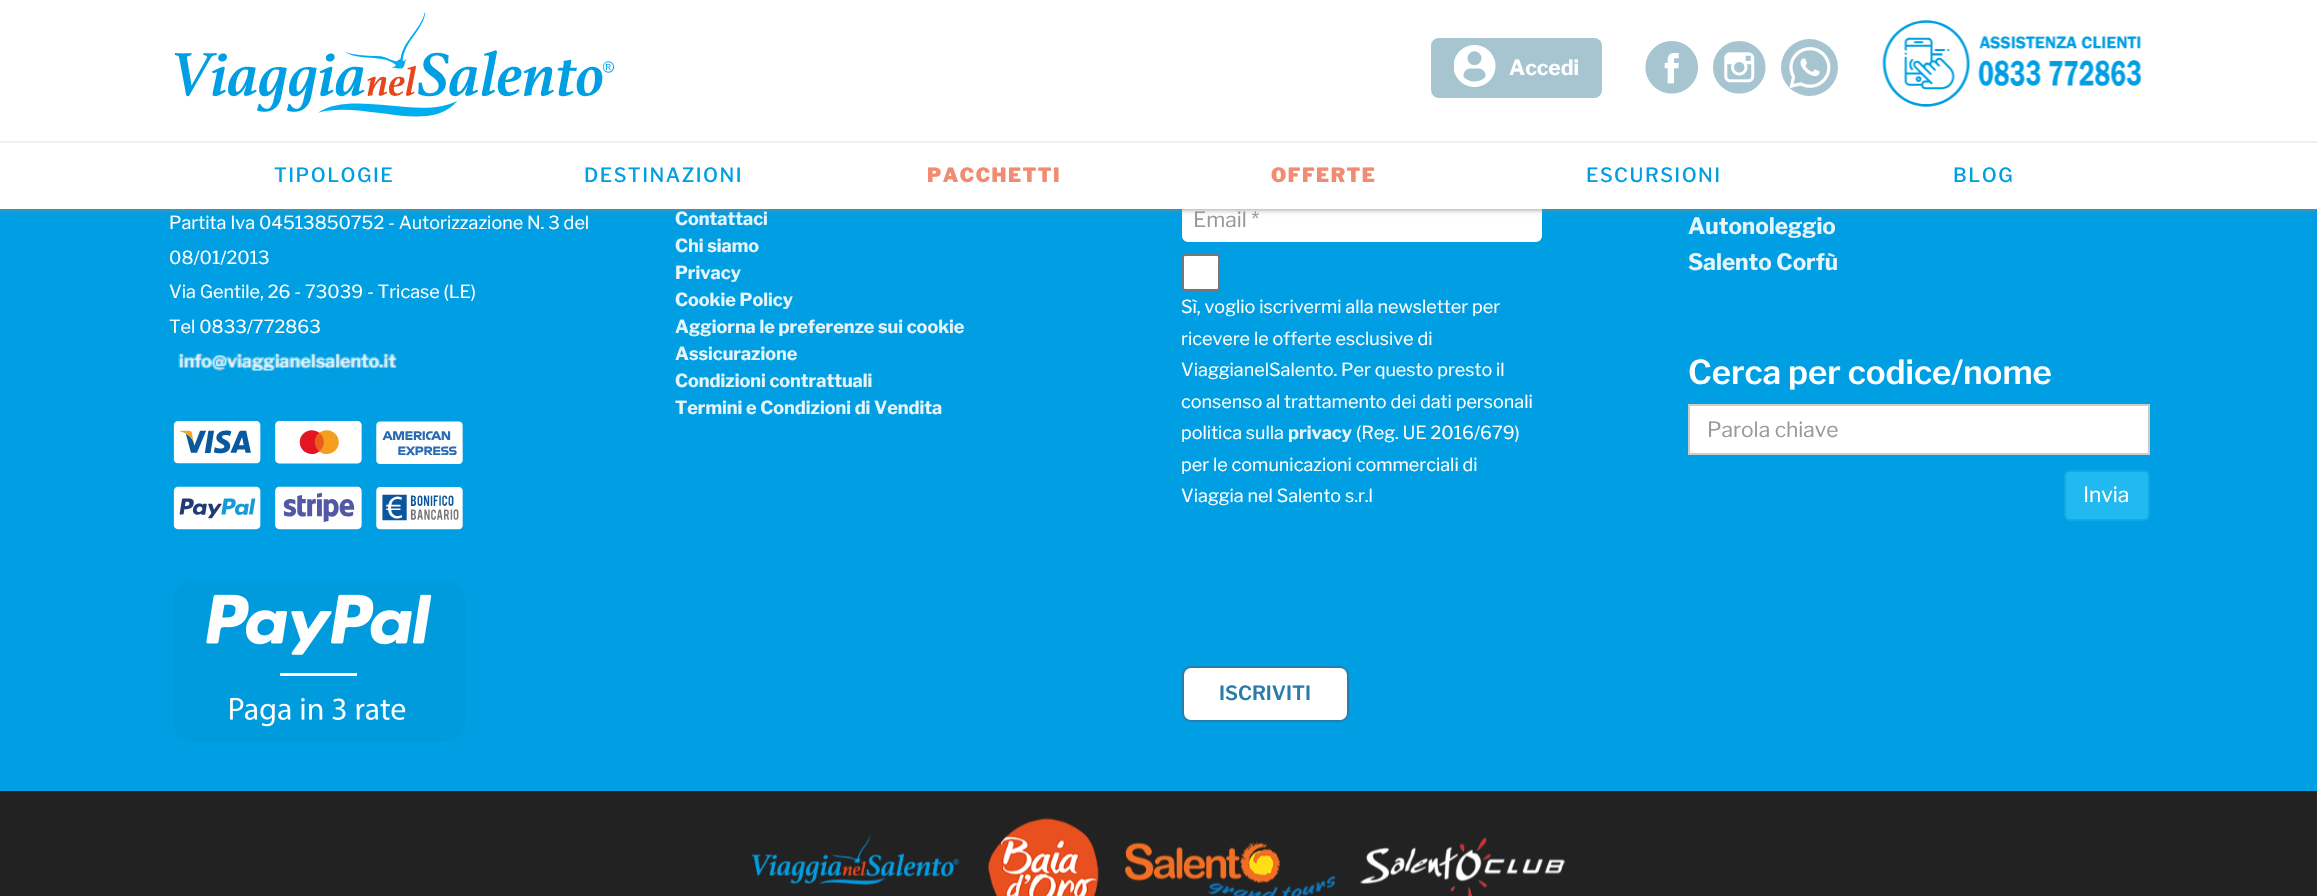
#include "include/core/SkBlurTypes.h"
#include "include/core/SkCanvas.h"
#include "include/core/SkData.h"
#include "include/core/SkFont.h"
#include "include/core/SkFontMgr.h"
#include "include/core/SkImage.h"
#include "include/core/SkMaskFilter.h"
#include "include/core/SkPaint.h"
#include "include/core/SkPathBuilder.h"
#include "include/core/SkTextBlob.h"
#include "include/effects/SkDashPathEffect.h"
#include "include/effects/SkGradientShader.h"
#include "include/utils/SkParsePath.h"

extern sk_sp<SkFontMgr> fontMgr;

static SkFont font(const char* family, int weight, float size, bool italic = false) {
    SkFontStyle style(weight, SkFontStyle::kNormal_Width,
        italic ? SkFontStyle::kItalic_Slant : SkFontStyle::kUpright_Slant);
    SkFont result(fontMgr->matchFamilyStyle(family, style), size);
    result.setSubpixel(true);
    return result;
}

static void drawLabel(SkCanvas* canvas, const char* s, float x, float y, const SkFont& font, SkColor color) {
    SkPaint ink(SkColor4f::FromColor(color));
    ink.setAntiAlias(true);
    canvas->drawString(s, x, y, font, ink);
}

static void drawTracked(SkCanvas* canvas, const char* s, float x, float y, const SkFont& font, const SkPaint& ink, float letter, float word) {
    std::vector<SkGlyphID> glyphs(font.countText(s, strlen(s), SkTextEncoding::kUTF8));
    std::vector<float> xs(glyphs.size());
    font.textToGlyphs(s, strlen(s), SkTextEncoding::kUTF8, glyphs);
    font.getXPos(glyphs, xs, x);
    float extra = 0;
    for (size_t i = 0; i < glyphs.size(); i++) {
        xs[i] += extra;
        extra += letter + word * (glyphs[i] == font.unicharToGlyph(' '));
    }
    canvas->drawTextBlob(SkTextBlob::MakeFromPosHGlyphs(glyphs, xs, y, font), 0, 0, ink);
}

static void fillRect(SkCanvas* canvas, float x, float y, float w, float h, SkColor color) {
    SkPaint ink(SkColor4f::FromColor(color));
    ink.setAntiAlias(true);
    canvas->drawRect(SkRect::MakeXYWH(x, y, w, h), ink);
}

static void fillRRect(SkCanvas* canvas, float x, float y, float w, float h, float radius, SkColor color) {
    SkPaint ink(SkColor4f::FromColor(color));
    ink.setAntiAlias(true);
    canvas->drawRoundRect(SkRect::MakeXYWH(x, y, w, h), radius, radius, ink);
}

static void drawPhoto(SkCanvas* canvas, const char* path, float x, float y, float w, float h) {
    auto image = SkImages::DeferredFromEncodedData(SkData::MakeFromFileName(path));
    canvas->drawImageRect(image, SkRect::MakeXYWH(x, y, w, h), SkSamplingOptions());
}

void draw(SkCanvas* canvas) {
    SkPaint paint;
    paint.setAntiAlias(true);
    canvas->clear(0xFF009FE3);
    paint.setColor(0xFFFFFFFF);
    canvas->drawRoundRect(SkRect::MakeXYWH(1183, 198, 358, 43), 5, 5, paint);
    paint.setStroke(true);
    paint.setStrokeWidth(2);
    canvas->drawRoundRect(SkRect::MakeXYWH(1183, 198, 358, 43), 5, 5, paint);
    paint.setStroke(false);
    paint.setColor(0xFF888888);
    paint.setMaskFilter(SkMaskFilter::MakeBlur(kNormal_SkBlurStyle, 3));
    canvas->drawRect(SkRect::MakeXYWH(0, 141, 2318, 68), paint);
    paint.setMaskFilter(nullptr);
    fillRect(canvas, 0, 0, 2317, 141, 0xFFFFFFFF);
    fillRect(canvas, 0, 141, 2317, 2, 0xFFEFEFEF);
    drawPhoto(canvas, "assets/img1.png", 174, 12, 441, 105);
    fillRRect(canvas, 1431, 38, 171, 60, 8, 0xFFA6C5D0);
    drawPhoto(canvas, "assets/img2.png", 1454, 45, 42, 42);
    SkFont font1 = font("Libre Franklin", 700, 21);
    drawLabel(canvas, "Accedi", 1509, 75, font1, 0xFFFFFFFF);
    drawPhoto(canvas, "assets/img3.png", 1645, 41, 53, 53);
    drawPhoto(canvas, "assets/img4.png", 1713, 41, 53, 53);
    paint.setColor(0xFFA6C5D0);
    canvas->drawCircle(1809.5f, 67.5f, 28.5f, paint);
    drawPhoto(canvas, "assets/img5.png", 1789, 47, 42, 41);
    drawPhoto(canvas, "assets/img6.png", 1882, 20, 260, 87);
    fillRect(canvas, 0, 143, 2317, 66, 0xFFFFFFFF);
    SkFont font2 = font("Libre Franklin", 500, 19.5f);
    paint.setColor(0xFF009FE3);
    drawTracked(canvas, "TIPOLOGIE", 274, 182, font2, paint, 1.5f, 0);
    drawTracked(canvas, "DESTINAZIONI", 584, 182, font2, paint, 1.5f, 0);
    SkFont font3 = font("Libre Franklin", 900, 19.5f);
    paint.setColor(0xFFF18B71);
    drawTracked(canvas, "PACCHETTI", 927, 182, font3, paint, 1.5f, 0);
    drawTracked(canvas, "OFFERTE", 1271, 182, font3, paint, 1.5f, 0);
    paint.setColor(0xFF009FE3);
    drawTracked(canvas, "ESCURSIONI", 1586, 182, font2, paint, 1.5f, 0);
    drawTracked(canvas, "BLOG", 1953, 182, font2, paint, 1.5f, 0);
    SkFont font4 = font("Libre Franklin", 400, 18);
    drawLabel(canvas, "Partita Iva 04513850752 - Autorizzazione N. 3 del", 169, 229, font4, 0xFFFFFFFF);
    drawLabel(canvas, "08/01/2013", 169, 264, font4, 0xFFFFFFFF);
    drawLabel(canvas, "Via Gentile, 26 - 73039 - Tricase (LE)", 169, 298, font4, 0xFFFFFFFF);
    drawLabel(canvas, "Tel 0833/772863", 169, 333, font4, 0xFFFFFFFF);
    drawPhoto(canvas, "assets/img7.png", 178, 353, 219, 18);
    drawPhoto(canvas, "assets/img8.png", 173, 421, 290, 109);
    drawPhoto(canvas, "assets/img9.png", 173, 581, 292, 161);
    SkFont font5 = font("Libre Franklin", 700, 18);
    drawLabel(canvas, "Contattaci", 675, 225, font5, 0xFFE6F5FC);
    drawLabel(canvas, "Chi siamo", 675, 252, font5, 0xFFE6F5FC);
    drawLabel(canvas, "Privacy", 675, 279, font5, 0xFFE6F5FC);
    drawLabel(canvas, "Cookie Policy", 675, 306, font5, 0xFFE6F5FC);
    drawLabel(canvas, "Aggiorna le preferenze sui cookie", 675, 333, font5, 0xFFE6F5FC);
    drawLabel(canvas, "Assicurazione", 675, 360, font5, 0xFFE6F5FC);
    drawLabel(canvas, "Condizioni contrattuali", 675, 387, font5, 0xFFE6F5FC);
    drawLabel(canvas, "Termini e Condizioni di Vendita", 675, 414, font5, 0xFFE6F5FC);
    SkFont font6 = font("Libre Franklin", 400, 21);
    drawLabel(canvas, "Email *", 1193, 227, font6, 0xFF999999);
    paint.setColor(0xFFFFFFFF);
    canvas->drawRoundRect(SkRect::MakeXYWH(1183, 255, 36, 35), 2, 2, paint);
    paint.setStroke(true);
    paint.setColor(0xFF767676);
    canvas->drawRoundRect(SkRect::MakeXYWH(1183, 255, 36, 35), 2, 2, paint);
    drawLabel(canvas, "Sì, voglio iscrivermi alla newsletter per", 1181, 313, font4, 0xFFFFFFFF);
    drawLabel(canvas, "ricevere le offerte esclusive di", 1181, 345, font4, 0xFFFFFFFF);
    drawLabel(canvas, "ViaggianelSalento. Per questo presto il", 1181, 376, font4, 0xFFFFFFFF);
    drawLabel(canvas, "consenso al trattamento dei dati personali", 1181, 408, font4, 0xFFFFFFFF);
    drawLabel(canvas, "politica sulla", 1181, 439, font4, 0xFFFFFFFF);
    drawLabel(canvas, "privacy", 1288, 439, font5, 0xFFE6F5FC);
    drawLabel(canvas, "(Reg. UE 2016/679)", 1356, 439, font4, 0xFFFFFFFF);
    drawLabel(canvas, "per le comunicazioni commerciali di", 1181, 471, font4, 0xFFFFFFFF);
    drawLabel(canvas, "Viaggia nel Salento s.r.l", 1181, 502, font4, 0xFFFFFFFF);
    paint.setStroke(false);
    paint.setColor(0xFFFFFFFF);
    canvas->drawRoundRect(SkRect::MakeXYWH(1183, 667, 165, 54), 8, 8, paint);
    paint.setStroke(true);
    paint.setColor(0xFF2C7CAA);
    canvas->drawRoundRect(SkRect::MakeXYWH(1183, 667, 165, 54), 8, 8, paint);
    SkFont font7 = font("Libre Franklin", 600, 19.5f);
    drawLabel(canvas, "ISCRIVITI", 1219, 700, font7, 0xFF2C7CAA);
    SkFont font8 = font("Libre Franklin", 700, 22.5f);
    drawLabel(canvas, "Autonoleggio", 1688, 234, font8, 0xFFE6F5FC);
    drawLabel(canvas, "Salento Corfù", 1688, 270, font8, 0xFFE6F5FC);
    SkFont font9 = font("Libre Franklin", 600, 33);
    drawLabel(canvas, "Cerca per codice/nome", 1688, 384, font9, 0xFFFFFFFF);
    paint.setStroke(false);
    paint.setColor(0xFFFFFFFF);
    canvas->drawRect(SkRect::MakeXYWH(1689, 405, 460, 49), paint);
    paint.setStroke(true);
    paint.setColor(0xFFCCCCCC);
    canvas->drawRect(SkRect::MakeXYWH(1689, 405, 460, 49), paint);
    drawLabel(canvas, "Parola chiave", 1707, 437, font6, 0xFF999999);
    paint.setStroke(false);
    paint.setColor(0xFF22B8F0);
    canvas->drawRoundRect(SkRect::MakeXYWH(2065, 471, 84, 49), 5, 5, paint);
    paint.setStroke(true);
    paint.setColor(0xFF0FAAE4);
    canvas->drawRoundRect(SkRect::MakeXYWH(2065, 471, 84, 49), 5, 5, paint);
    drawLabel(canvas, "Invia", 2083, 502, font6, 0xFFFFFFFF);
    fillRect(canvas, 0, 791, 2317, 105, 0xFF222222);
    drawPhoto(canvas, "assets/img10.png", 751, 835, 209, 50);
    drawPhoto(canvas, "assets/img11.png", 988, 818, 111, 78);
    drawPhoto(canvas, "assets/img12.png", 1125, 841, 210, 55);
    drawPhoto(canvas, "assets/img13.png", 1360, 836, 205, 60);
}
